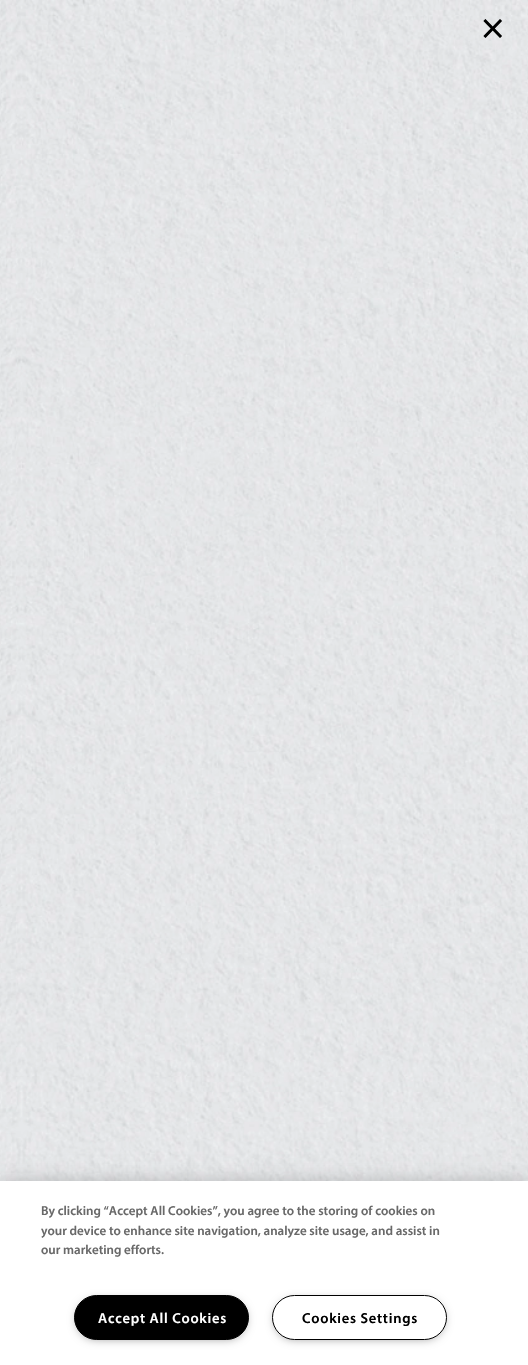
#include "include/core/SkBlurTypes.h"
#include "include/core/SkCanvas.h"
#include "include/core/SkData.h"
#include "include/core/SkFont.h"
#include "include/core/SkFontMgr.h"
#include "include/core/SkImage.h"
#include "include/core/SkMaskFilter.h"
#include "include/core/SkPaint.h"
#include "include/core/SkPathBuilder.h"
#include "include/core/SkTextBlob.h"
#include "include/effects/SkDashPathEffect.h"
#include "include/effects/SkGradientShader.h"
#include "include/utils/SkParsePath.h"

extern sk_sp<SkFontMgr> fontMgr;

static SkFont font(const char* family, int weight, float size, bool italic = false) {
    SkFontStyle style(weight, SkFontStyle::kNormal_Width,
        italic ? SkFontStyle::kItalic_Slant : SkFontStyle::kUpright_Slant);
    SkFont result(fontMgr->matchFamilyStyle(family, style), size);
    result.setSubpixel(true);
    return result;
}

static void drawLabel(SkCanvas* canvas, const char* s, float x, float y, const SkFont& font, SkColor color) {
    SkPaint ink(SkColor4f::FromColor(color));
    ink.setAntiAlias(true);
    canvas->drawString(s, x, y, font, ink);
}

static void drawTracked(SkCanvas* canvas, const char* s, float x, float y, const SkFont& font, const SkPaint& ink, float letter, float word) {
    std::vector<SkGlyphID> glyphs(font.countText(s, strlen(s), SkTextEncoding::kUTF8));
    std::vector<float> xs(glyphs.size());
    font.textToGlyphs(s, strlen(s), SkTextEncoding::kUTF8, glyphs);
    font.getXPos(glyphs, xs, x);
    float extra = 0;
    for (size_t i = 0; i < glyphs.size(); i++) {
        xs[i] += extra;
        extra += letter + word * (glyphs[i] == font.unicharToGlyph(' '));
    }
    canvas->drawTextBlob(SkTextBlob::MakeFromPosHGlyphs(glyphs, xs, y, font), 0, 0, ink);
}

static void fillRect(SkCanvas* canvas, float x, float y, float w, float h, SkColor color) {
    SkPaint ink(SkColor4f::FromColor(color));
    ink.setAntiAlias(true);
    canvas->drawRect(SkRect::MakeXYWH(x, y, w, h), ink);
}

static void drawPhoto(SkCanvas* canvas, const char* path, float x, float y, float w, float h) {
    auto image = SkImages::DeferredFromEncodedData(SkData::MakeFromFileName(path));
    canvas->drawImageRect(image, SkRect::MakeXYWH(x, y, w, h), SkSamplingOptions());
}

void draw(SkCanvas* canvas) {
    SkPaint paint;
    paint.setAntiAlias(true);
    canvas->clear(0xFFFFFFFF);
    drawPhoto(canvas, "assets/img1.png", 0, 0, 528, 1181);
    SkFont font1 = font("Myriad", 600, 36);
    drawLabel(canvas, "×", 482, 38, font1, 0xFF000000);
    paint.setColor(0x33000000);
    paint.setMaskFilter(SkMaskFilter::MakeBlur(kNormal_SkBlurStyle, 9));
    canvas->drawRect(SkRect::MakeXYWH(0, 1181, 528, 184), paint);
    paint.setMaskFilter(nullptr);
    fillRect(canvas, 0, 1181, 528, 184, 0xFFFFFFFF);
    SkFont font2 = font("Myriad", 600, 13);
    drawLabel(canvas, "By clicking “Accept All Cookies”, you agree to the storing of cookies on", 41, 1215, font2, 0xFF696969);
    drawLabel(canvas, "your device to enhance site navigation, analyze site usage, and assist in", 41, 1235, font2, 0xFF696969);
    drawLabel(canvas, "our marketing efforts.", 41, 1254, font2, 0xFF696969);
    paint.setColor(0xFF999999);
    paint.setMaskFilter(SkMaskFilter::MakeBlur(kNormal_SkBlurStyle, 5));
    canvas->drawRoundRect(SkRect::MakeXYWH(77, 1300, 169, 39), 19.5f, 19.5f, paint);
    paint.setMaskFilter(nullptr);
    paint.setColor(0xFF000000);
    canvas->drawRoundRect(SkRect::MakeXYWH(74.5f, 1295.5f, 174, 44), 22, 22, paint);
    paint.setStroke(true);
    paint.setStrokeWidth(1);
    canvas->drawRoundRect(SkRect::MakeXYWH(74.5f, 1295.5f, 174, 44), 22, 22, paint);
    SkFont font3 = font("Myriad", 600, 14.5f);
    paint.setStroke(false);
    paint.setColor(0xFFFFFFFF);
    drawTracked(canvas, "Accept All Cookies", 98, 1323, font3, paint, 0.75f, 0);
    paint.setColor(0xFF999999);
    paint.setMaskFilter(SkMaskFilter::MakeBlur(kNormal_SkBlurStyle, 5));
    canvas->drawRoundRect(SkRect::MakeXYWH(275, 1300, 169, 39), 19.5f, 19.5f, paint);
    paint.setMaskFilter(nullptr);
    paint.setColor(0xFFFFFFFF);
    canvas->drawRoundRect(SkRect::MakeXYWH(272.5f, 1295.5f, 174, 44), 22, 22, paint);
    paint.setStroke(true);
    paint.setColor(0xFF000000);
    canvas->drawRoundRect(SkRect::MakeXYWH(272.5f, 1295.5f, 174, 44), 22, 22, paint);
    paint.setStroke(false);
    drawTracked(canvas, "Cookies Settings", 302, 1323, font3, paint, 0.75f, 0);
}
